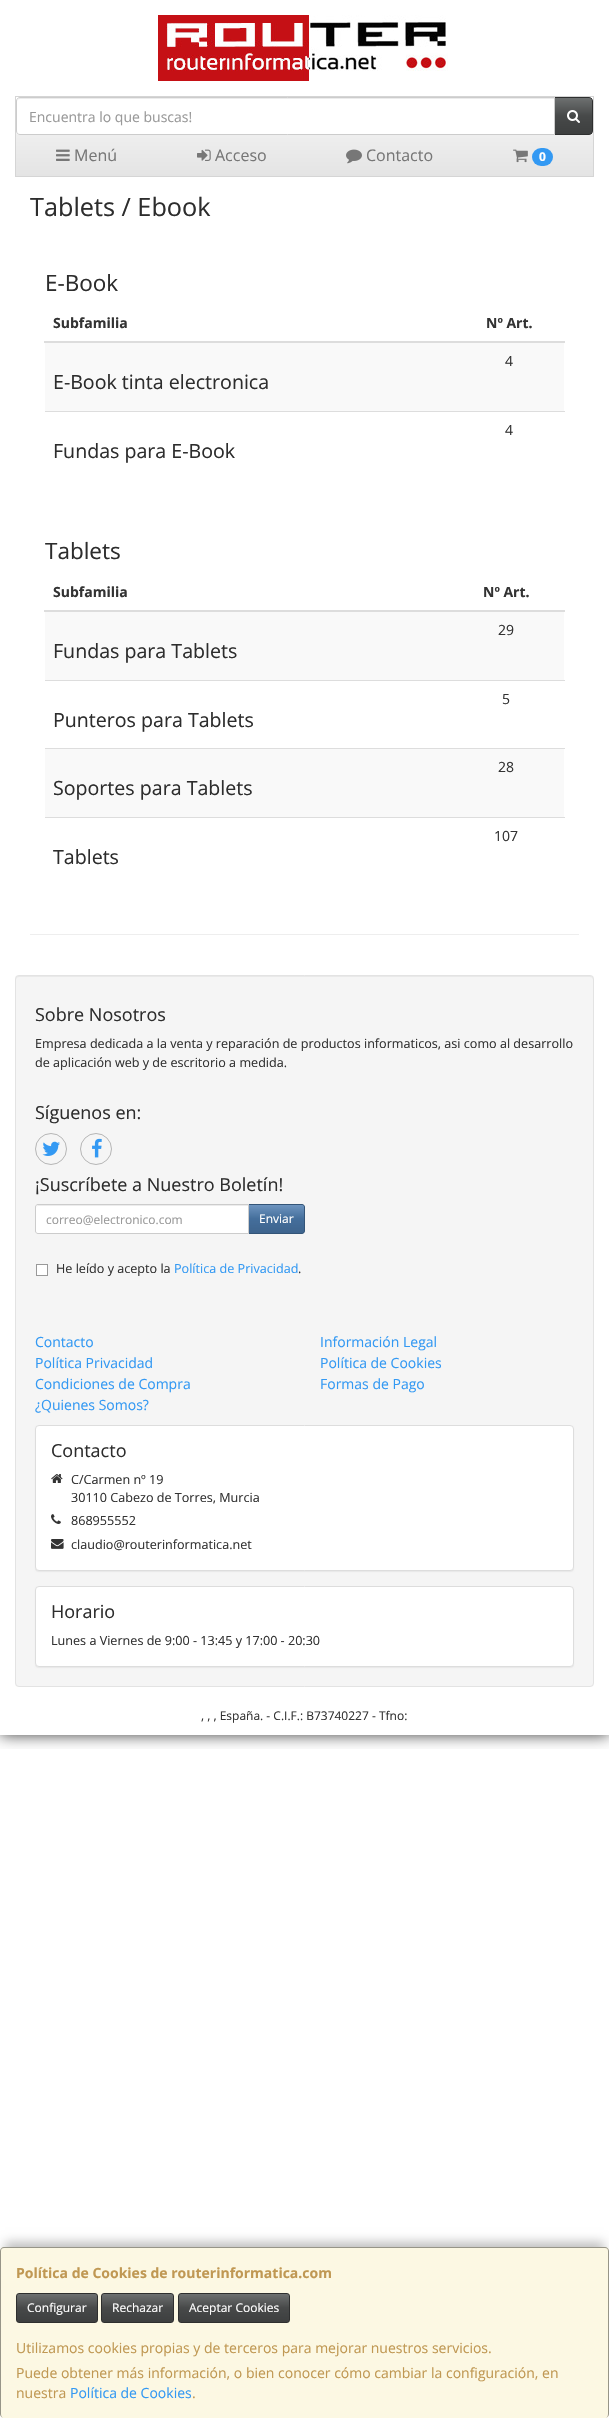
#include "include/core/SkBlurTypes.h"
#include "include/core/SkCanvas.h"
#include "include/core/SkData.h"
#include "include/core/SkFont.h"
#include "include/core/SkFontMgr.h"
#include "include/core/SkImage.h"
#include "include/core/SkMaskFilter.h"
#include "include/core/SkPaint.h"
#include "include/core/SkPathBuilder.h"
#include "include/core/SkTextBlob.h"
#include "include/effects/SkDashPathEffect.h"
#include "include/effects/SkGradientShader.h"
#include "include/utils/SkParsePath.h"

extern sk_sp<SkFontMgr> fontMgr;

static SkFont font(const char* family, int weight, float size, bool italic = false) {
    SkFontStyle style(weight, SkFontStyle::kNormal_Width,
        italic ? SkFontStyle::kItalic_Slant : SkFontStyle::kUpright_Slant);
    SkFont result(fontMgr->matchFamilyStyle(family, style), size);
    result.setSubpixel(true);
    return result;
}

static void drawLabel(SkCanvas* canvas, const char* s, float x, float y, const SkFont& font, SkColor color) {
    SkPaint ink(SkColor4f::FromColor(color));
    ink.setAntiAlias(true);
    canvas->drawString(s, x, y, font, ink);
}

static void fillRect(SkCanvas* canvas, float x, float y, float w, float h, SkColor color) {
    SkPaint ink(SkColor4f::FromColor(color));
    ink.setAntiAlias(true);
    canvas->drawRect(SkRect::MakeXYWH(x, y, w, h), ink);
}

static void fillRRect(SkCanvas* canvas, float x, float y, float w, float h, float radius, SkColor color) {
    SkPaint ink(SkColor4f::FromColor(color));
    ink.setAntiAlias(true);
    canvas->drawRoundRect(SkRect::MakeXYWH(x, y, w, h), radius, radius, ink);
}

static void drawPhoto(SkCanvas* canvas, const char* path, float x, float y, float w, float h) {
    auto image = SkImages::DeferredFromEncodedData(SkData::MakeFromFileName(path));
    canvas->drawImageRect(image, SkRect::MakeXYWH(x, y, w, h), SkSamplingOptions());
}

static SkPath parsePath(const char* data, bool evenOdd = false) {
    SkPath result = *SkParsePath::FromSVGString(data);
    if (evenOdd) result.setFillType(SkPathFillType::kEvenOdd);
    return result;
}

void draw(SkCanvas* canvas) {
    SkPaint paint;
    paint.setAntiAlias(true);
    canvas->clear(0xFFFFFFFF);
    canvas->save();
    canvas->clipRect(SkRect::MakeXYWH(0, 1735, 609, 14));
    paint.setColor(0xBF000000);
    paint.setMaskFilter(SkMaskFilter::MakeBlur(kNormal_SkBlurStyle, 7.5f));
    canvas->drawRect(SkRect::MakeXYWH(0, 0, 609, 1735), paint);
    paint.setMaskFilter(nullptr);
    canvas->restore();
    drawPhoto(canvas, "assets/img1.png", 158, 15, 290, 66);
    {
        const SkColor colors[] = {0xFFFFFFFF, 0xFFEEEEEE, 0xFFE4E4E4};
        const float stops[] = {0, 0.5f, 1};
        const SkPoint ends[] = {{305, 97}, {305, 176}};
        paint.setShader(SkGradientShader::MakeLinear(ends, colors, stops, 3, SkTileMode::kClamp));
        paint.setAlpha(255);
    }
    canvas->drawRect(SkRect::MakeXYWH(16, 103, 577, 73), paint);
    paint.setStroke(true);
    paint.setStrokeWidth(1);
    paint.setShader(nullptr);
    paint.setColor(0xFFD5D5D5);
    canvas->drawRect(SkRect::MakeXYWH(15.5f, 96.5f, 578, 80), paint);
    paint.setStroke(false);
    {
        const SkColor colors[] = {0xFF6D7070, 0xFF474949, 0xFF3D3F3F};
        const float stops[] = {0, 0.5f, 1};
        const SkPoint ends[] = {{574, 98}, {574, 134}};
        paint.setShader(SkGradientShader::MakeLinear(ends, colors, stops, 3, SkTileMode::kClamp));
        paint.setAlpha(255);
    }
    canvas->drawRect(SkRect::MakeXYWH(555, 98, 37, 36), paint);
    paint.setStroke(true);
    paint.setShader(nullptr);
    paint.setColor(0xFF2E2F2F);
    canvas->drawPath(parsePath("M554.5 97.5H589C591 97.5 592.5 99 592.5 101V131C592.5 133 591 134.5 589 134.5H554.5Z"), paint);
    paint.setStroke(false);
    paint.setColor(0xFFFFFFFF);
    canvas->drawPath(parsePath("M20 97H555V135H20C18 135 16 133 16 131V101C16 99 18 97 20 97Z"), paint);
    paint.setColor(0xFFECECEC);
    canvas->drawPath(parsePath("M20 99H554V98H20C18 98 17 100 17 102C17 100 18 99 20 99Z"), paint);
    paint.setStroke(true);
    paint.setColor(0xFFCCCCCC);
    canvas->drawPath(parsePath("M20 97.5H554.5V134.5H20C18 134.5 16.5 133 16.5 131V101C16.5 99 18 97.5 20 97.5Z"), paint);
    SkFont font1 = font("Open Sans", 400, 14);
    drawLabel(canvas, "Encuentra lo que buscas!", 29, 122, font1, 0xFF999999);
    drawPhoto(canvas, "assets/img2.png", 567, 110, 13, 13);
    drawPhoto(canvas, "assets/img3.png", 56, 149, 14, 12);
    SkFont font2 = font("Open Sans", 400, 16);
    drawLabel(canvas, "Menú", 74, 161, font2, 0xFF777777);
    drawPhoto(canvas, "assets/img4.png", 197, 149, 14, 12);
    drawLabel(canvas, "Acceso", 215, 161, font2, 0xFF777777);
    drawPhoto(canvas, "assets/img5.png", 346, 149, 16, 15);
    drawLabel(canvas, "Contacto", 366, 161, font2, 0xFF777777);
    drawPhoto(canvas, "assets/img6.png", 513, 149, 15, 14);
    fillRRect(canvas, 532, 148, 21, 18, 9, 0xFF3399F3);
    SkFont font3 = font("Open Sans", 700, 12);
    drawLabel(canvas, "0", 539, 161, font3, 0xFFFFFFFF);
    fillRect(canvas, 30, 934, 549, 1, 0xFFEEEEEE);
    SkFont font4 = font("Open Sans", 400, 25.25f);
    drawLabel(canvas, "Tablets / Ebook", 30, 216, font4, 0xFF2D2D2D);
    SkFont font5 = font("Open Sans", 400, 22.5f);
    drawLabel(canvas, "E-Book", 45, 291, font5, 0xFF2D2D2D);
    SkFont font6 = font("Open Sans", 700, 14);
    drawLabel(canvas, "Subfamilia", 53, 328, font6, 0xFF333333);
    fillRect(canvas, 44, 341, 521, 2, 0xFFDDDDDD);
    drawLabel(canvas, "Nº Art.", 486, 328, font6, 0xFF333333);
    fillRect(canvas, 45, 343, 519, 68, 0xFFF9F9F9);
    drawLabel(canvas, "4", 505, 366, font1, 0xFF333333);
    SkFont font7 = font("Open Sans", 400, 19.6f);
    drawLabel(canvas, "E-Book tinta electronica", 53, 389, font7, 0xFF2D2D2D);
    fillRect(canvas, 45, 411, 520, 1, 0xFFDDDDDD);
    drawLabel(canvas, "4", 505, 435, font1, 0xFF333333);
    drawLabel(canvas, "Fundas para E-Book", 53, 458, font7, 0xFF2D2D2D);
    drawLabel(canvas, "Tablets", 45, 559, font5, 0xFF2D2D2D);
    drawLabel(canvas, "Subfamilia", 53, 597, font6, 0xFF333333);
    fillRect(canvas, 44, 610, 521, 2, 0xFFDDDDDD);
    drawLabel(canvas, "Nº Art.", 483, 597, font6, 0xFF333333);
    fillRect(canvas, 45, 612, 519, 68, 0xFFF9F9F9);
    drawLabel(canvas, "29", 498, 635, font1, 0xFF333333);
    drawLabel(canvas, "Fundas para Tablets", 53, 658, font7, 0xFF2D2D2D);
    fillRect(canvas, 45, 680, 520, 1, 0xFFDDDDDD);
    drawLabel(canvas, "5", 502, 704, font1, 0xFF333333);
    drawLabel(canvas, "Punteros para Tablets", 53, 727, font7, 0xFF2D2D2D);
    fillRect(canvas, 45, 749, 519, 68, 0xFFF9F9F9);
    fillRect(canvas, 45, 748, 520, 1, 0xFFDDDDDD);
    drawLabel(canvas, "28", 498, 772, font1, 0xFF333333);
    drawLabel(canvas, "Soportes para Tablets", 53, 795, font7, 0xFF2D2D2D);
    fillRect(canvas, 45, 817, 520, 1, 0xFFDDDDDD);
    drawLabel(canvas, "107", 494, 841, font1, 0xFF333333);
    drawLabel(canvas, "Tablets", 53, 864, font7, 0xFF2D2D2D);
    fillRRect(canvas, 15, 975, 579, 712, 4, 0xFFF5F5F5);
    paint.setStroke(false);
    paint.setColor(0xFFE9E9E9);
    canvas->drawPath(parsePath("M19 977H590C592 977 593 978 593 980V979C593 977 592 976 590 976H19C17 976 16 977 16 979V980C16 978 17 977 19 977Z"), paint);
    paint.setStroke(true);
    paint.setColor(0xFFE3E3E3);
    canvas->drawRoundRect(SkRect::MakeXYWH(15.5f, 975.5f, 578, 711), 3.5f, 3.5f, paint);
    SkFont font8 = font("Open Sans", 400, 18);
    drawLabel(canvas, "Sobre Nosotros", 35, 1021, font8, 0xFF2D2D2D);
    SkFont font9 = font("Open Sans", 400, 12.6f);
    drawLabel(canvas, "Empresa dedicada a la venta y reparación de productos informaticos, asi como al desarrollo", 35, 1048, font9, 0xFF333333);
    drawLabel(canvas, "de aplicación web y de escritorio a medida.", 35, 1067, font9, 0xFF333333);
    drawLabel(canvas, "Síguenos en:", 35, 1119, font8, 0xFF2D2D2D);
    paint.setColor(0xFFB5B5B5);
    canvas->drawCircle(51, 1149, 15.5f, paint);
    drawPhoto(canvas, "assets/img7.png", 42, 1141, 18, 15);
    canvas->drawCircle(96, 1149, 15.5f, paint);
    drawPhoto(canvas, "assets/img8.png", 92, 1138, 10, 20);
    drawLabel(canvas, "¡Suscríbete a Nuestro Boletín!", 35, 1191, font8, 0xFF2D2D2D);
    paint.setStroke(false);
    {
        const SkColor colors[] = {0xFF6D94BF, 0xFF446E9B, 0xFF3E648D};
        const float stops[] = {0, 0.5f, 1};
        const SkPoint ends[] = {{277, 1205}, {277, 1233}};
        paint.setShader(SkGradientShader::MakeLinear(ends, colors, stops, 3, SkTileMode::kClamp));
        paint.setAlpha(255);
    }
    canvas->drawRect(SkRect::MakeXYWH(249, 1205, 55, 28), paint);
    paint.setStroke(true);
    paint.setShader(nullptr);
    paint.setColor(0xFF345578);
    canvas->drawPath(parsePath("M248.5 1204.5H302C303.5 1204.5 304.5 1205.5 304.5 1207V1231C304.5 1232.5 303.5 1233.5 302 1233.5H248.5Z"), paint);
    paint.setStroke(false);
    paint.setColor(0xFFFFFFFF);
    canvas->drawPath(parsePath("M38 1204H249V1234H38C36.5 1234 35 1232.5 35 1231V1207C35 1205.5 36.5 1204 38 1204Z"), paint);
    paint.setColor(0xFFECECEC);
    canvas->drawPath(parsePath("M38 1206H248V1205H38L37 1206L36 1208C36 1207 37 1206 38 1206Z"), paint);
    paint.setStroke(true);
    paint.setColor(0xFFCCCCCC);
    canvas->drawPath(parsePath("M38 1204.5H248.5V1233.5H38C36.5 1233.5 35.5 1232.5 35.5 1231V1207C35.5 1205.5 36.5 1204.5 38 1204.5Z"), paint);
    SkFont font10 = font("Open Sans", 400, 12);
    drawLabel(canvas, "correo@electronico.com", 46, 1224, font10, 0xFF999999);
    drawLabel(canvas, "Enviar", 259, 1223, font10, 0xFFFFFFFF);
    paint.setStroke(false);
    paint.setColor(0xFFFFFFFF);
    canvas->drawRect(SkRect::MakeXYWH(36.5f, 1264.5f, 11, 11), paint);
    paint.setStroke(true);
    paint.setColor(0xFF999999);
    canvas->drawRect(SkRect::MakeXYWH(36.5f, 1264.5f, 11, 11), paint);
    drawLabel(canvas, "He leído y acepto la", 56, 1273, font9, 0xFF333333);
    drawLabel(canvas, "Política de Privacidad", 174, 1273, font9, 0xFF3399F3);
    drawLabel(canvas, ".", 298, 1273, font9, 0xFF333333);
    drawLabel(canvas, "Contacto", 35, 1347, font1, 0xFF3399F3);
    drawLabel(canvas, "Información Legal", 320, 1347, font1, 0xFF3399F3);
    drawLabel(canvas, "Política Privacidad", 35, 1368, font1, 0xFF3399F3);
    drawLabel(canvas, "Política de Cookies", 320, 1368, font1, 0xFF3399F3);
    drawLabel(canvas, "Condiciones de Compra", 35, 1389, font1, 0xFF3399F3);
    drawLabel(canvas, "Formas de Pago", 320, 1389, font1, 0xFF3399F3);
    drawLabel(canvas, "¿Quienes Somos?", 35, 1410, font1, 0xFF3399F3);
    paint.setStroke(false);
    paint.setColor(0x0D000000);
    paint.setMaskFilter(SkMaskFilter::MakeBlur(kNormal_SkBlurStyle, 0.5f));
    canvas->drawRoundRect(SkRect::MakeXYWH(35, 1426, 539, 146), 4, 4, paint);
    paint.setMaskFilter(nullptr);
    paint.setColor(0xFFFFFFFF);
    canvas->drawRoundRect(SkRect::MakeXYWH(35.5f, 1425.5f, 538, 145), 3.5f, 3.5f, paint);
    paint.setStroke(true);
    paint.setColor(0xFFDDDDDD);
    canvas->drawRoundRect(SkRect::MakeXYWH(35.5f, 1425.5f, 538, 145), 3.5f, 3.5f, paint);
    drawLabel(canvas, "Contacto", 51, 1457, font8, 0xFF2D2D2D);
    drawPhoto(canvas, "assets/img9.png", 51, 1474, 12, 9);
    drawLabel(canvas, "C/Carmen nº 19", 71, 1484, font9, 0xFF333333);
    drawLabel(canvas, "30110 Cabezo de Torres, Murcia", 71, 1502, font9, 0xFF333333);
    drawPhoto(canvas, "assets/img10.png", 51, 1514, 10, 10);
    drawLabel(canvas, "868955552", 71, 1525, font9, 0xFF333333);
    drawPhoto(canvas, "assets/img11.png", 51, 1539, 13, 10);
    drawLabel(canvas, "claudio@routerinformatica.net", 71, 1549, font9, 0xFF333333);
    paint.setStroke(false);
    paint.setColor(0x0D000000);
    paint.setMaskFilter(SkMaskFilter::MakeBlur(kNormal_SkBlurStyle, 0.5f));
    canvas->drawRoundRect(SkRect::MakeXYWH(35, 1587, 539, 81), 4, 4, paint);
    paint.setMaskFilter(nullptr);
    paint.setColor(0xFFFFFFFF);
    canvas->drawRoundRect(SkRect::MakeXYWH(35.5f, 1586.5f, 538, 80), 3.5f, 3.5f, paint);
    paint.setStroke(true);
    paint.setColor(0xFFDDDDDD);
    canvas->drawRoundRect(SkRect::MakeXYWH(35.5f, 1586.5f, 538, 80), 3.5f, 3.5f, paint);
    drawLabel(canvas, "Horario", 51, 1618, font8, 0xFF2D2D2D);
    drawLabel(canvas, "Lunes a Viernes de 9:00 - 13:45 y 17:00 - 20:30", 51, 1645, font9, 0xFF333333);
    drawLabel(canvas, ", , , España. - C.I.F.: B73740227 - Tfno:", 201, 1720, font10, 0xFF333333);
    paint.setStroke(false);
    paint.setColor(0x40000000);
    paint.setMaskFilter(SkMaskFilter::MakeBlur(kNormal_SkBlurStyle, 5));
    canvas->drawRect(SkRect::MakeXYWH(5, 2242, 599, 161), paint);
    paint.setMaskFilter(nullptr);
    fillRRect(canvas, 0, 2247, 609, 171, 4, 0xFFFCF8E3);
    paint.setColor(0x66000000);
    canvas->drawPath(parsePath("M4 2247H605C607 2247 609 2249 609 2251V2414C609 2416 607 2418 605 2418H4C2 2418 0 2416 0 2414V2251C0 2249 2 2247 4 2247ZM4 2248H605C607 2248 608 2249 608 2251V2414C608 2416 607 2418 605 2418H4C2 2418 1 2416 1 2414V2251C1 2249 2 2248 4 2248Z", true), paint);
    drawLabel(canvas, "Política de Cookies de routerinformatica.com", 16, 2278, font6, 0xFFC09853);
    {
        const SkColor colors[] = {0xFF6D7070, 0xFF474949, 0xFF3D3F3F};
        const float stops[] = {0, 0.5f, 1};
        const SkPoint ends[] = {{57, 2294}, {57, 2322}};
        paint.setShader(SkGradientShader::MakeLinear(ends, colors, stops, 3, SkTileMode::kClamp));
        paint.setAlpha(255);
    }
    canvas->drawRect(SkRect::MakeXYWH(17, 2294, 80, 28), paint);
    paint.setStroke(true);
    paint.setShader(nullptr);
    paint.setColor(0xFF2E2F2F);
    canvas->drawRoundRect(SkRect::MakeXYWH(16.5f, 2293.5f, 81, 29), 2.5f, 2.5f, paint);
    drawLabel(canvas, "Configurar", 27, 2312, font10, 0xFFFFFFFF);
    paint.setStroke(false);
    {
        const SkColor colors[] = {0xFF6D7070, 0xFF474949, 0xFF3D3F3F};
        const float stops[] = {0, 0.5f, 1};
        const SkPoint ends[] = {{138, 2294}, {138, 2322}};
        paint.setShader(SkGradientShader::MakeLinear(ends, colors, stops, 3, SkTileMode::kClamp));
        paint.setAlpha(255);
    }
    canvas->drawRect(SkRect::MakeXYWH(102, 2294, 71, 28), paint);
    paint.setStroke(true);
    paint.setShader(nullptr);
    paint.setColor(0xFF2E2F2F);
    canvas->drawRoundRect(SkRect::MakeXYWH(101.5f, 2293.5f, 72, 29), 2.5f, 2.5f, paint);
    drawLabel(canvas, "Rechazar", 112, 2312, font10, 0xFFFFFFFF);
    paint.setStroke(false);
    {
        const SkColor colors[] = {0xFF6D7070, 0xFF474949, 0xFF3D3F3F};
        const float stops[] = {0, 0.5f, 1};
        const SkPoint ends[] = {{234, 2294}, {234, 2322}};
        paint.setShader(SkGradientShader::MakeLinear(ends, colors, stops, 3, SkTileMode::kClamp));
        paint.setAlpha(255);
    }
    canvas->drawRect(SkRect::MakeXYWH(179, 2294, 110, 28), paint);
    paint.setStroke(true);
    paint.setShader(nullptr);
    paint.setColor(0xFF2E2F2F);
    canvas->drawRoundRect(SkRect::MakeXYWH(178.5f, 2293.5f, 111, 29), 2.5f, 2.5f, paint);
    drawLabel(canvas, "Aceptar Cookies", 189, 2312, font10, 0xFFFFFFFF);
    drawLabel(canvas, "Utilizamos cookies propias y de terceros para mejorar nuestros servicios.", 16, 2353, font1, 0xFFC09853);
    drawLabel(canvas, "Puede obtener más información, o bien conocer cómo cambiar la configuración, en", 16, 2378, font1, 0xFFC09853);
    drawLabel(canvas, "nuestra", 16, 2398, font1, 0xFFC09853);
    drawLabel(canvas, "Política de Cookies", 70, 2398, font1, 0xFF3399F3);
    drawLabel(canvas, ".", 192, 2398, font1, 0xFFC09853);
}
